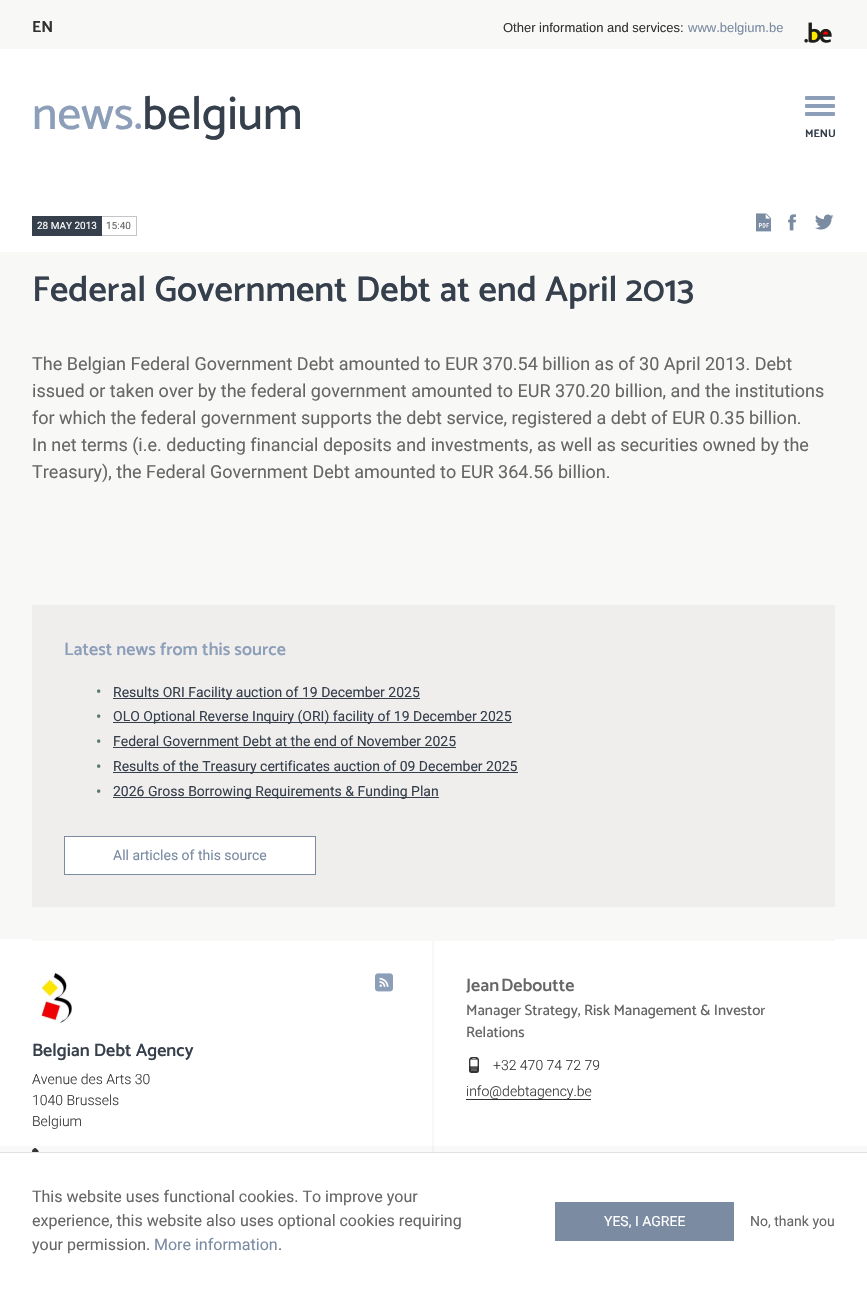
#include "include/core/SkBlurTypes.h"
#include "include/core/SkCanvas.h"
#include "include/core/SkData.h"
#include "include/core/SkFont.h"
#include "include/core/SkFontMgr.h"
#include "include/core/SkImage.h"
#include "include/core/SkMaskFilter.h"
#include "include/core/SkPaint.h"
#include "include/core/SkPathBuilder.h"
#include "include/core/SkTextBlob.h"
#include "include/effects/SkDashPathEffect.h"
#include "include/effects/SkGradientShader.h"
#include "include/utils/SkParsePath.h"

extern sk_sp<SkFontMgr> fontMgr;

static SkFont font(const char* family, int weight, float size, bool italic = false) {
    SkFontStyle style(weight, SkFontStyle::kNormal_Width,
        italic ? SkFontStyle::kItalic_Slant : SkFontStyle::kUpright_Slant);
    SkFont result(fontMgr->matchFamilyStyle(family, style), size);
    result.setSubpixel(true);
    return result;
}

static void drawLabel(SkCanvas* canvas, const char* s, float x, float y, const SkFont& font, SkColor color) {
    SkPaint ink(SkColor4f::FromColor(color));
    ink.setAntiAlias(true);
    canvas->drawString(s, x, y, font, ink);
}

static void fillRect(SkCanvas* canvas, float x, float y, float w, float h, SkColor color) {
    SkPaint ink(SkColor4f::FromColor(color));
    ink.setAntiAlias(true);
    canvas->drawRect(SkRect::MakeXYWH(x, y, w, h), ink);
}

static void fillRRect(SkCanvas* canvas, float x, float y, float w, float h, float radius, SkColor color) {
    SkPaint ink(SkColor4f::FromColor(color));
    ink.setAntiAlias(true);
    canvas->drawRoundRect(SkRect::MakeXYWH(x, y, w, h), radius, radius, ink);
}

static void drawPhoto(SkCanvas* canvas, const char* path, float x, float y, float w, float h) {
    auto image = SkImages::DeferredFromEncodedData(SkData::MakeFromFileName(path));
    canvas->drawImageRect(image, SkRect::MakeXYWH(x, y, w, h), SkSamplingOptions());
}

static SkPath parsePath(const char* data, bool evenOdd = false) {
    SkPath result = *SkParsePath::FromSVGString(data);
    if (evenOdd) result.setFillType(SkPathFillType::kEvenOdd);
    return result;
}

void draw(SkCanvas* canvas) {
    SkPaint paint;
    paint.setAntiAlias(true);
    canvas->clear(0xFFF8F8F7);
    SkFont font1 = font("Catamaran", 700, 16);
    drawLabel(canvas, "EN", 32, 32, font1, 0xFF333333);
    SkFont font2 = font("Liberation Sans", 400, 13);
    drawLabel(canvas, "Other information and services:", 503, 32, font2, 0xFF333333);
    drawLabel(canvas, "www.belgium.be", 688, 32, font2, 0xFF7B8BA2);
    drawPhoto(canvas, "assets/img1.png", 804, 22, 28, 21);
    fillRect(canvas, 0, 49, 867, 203, 0xFFFFFFFF);
    SkFont font3 = font("Catamaran", 500, 47);
    drawLabel(canvas, "news.", 32, 129, font3, 0xFF8C9EB8);
    drawLabel(canvas, "belgium", 142, 129, font3, 0xFF363F4C);
    fillRRect(canvas, 805, 96, 30, 4, 1, 0xFF8C9EB8);
    fillRRect(canvas, 805, 104, 30, 4, 1, 0xFF8C9EB8);
    fillRRect(canvas, 805, 112, 30, 4, 1, 0xFF8C9EB8);
    SkFont font4 = font("Catamaran", 700, 11);
    drawLabel(canvas, "MENU", 805, 137, font4, 0xFF363F4C);
    fillRect(canvas, 32, 216, 70, 20, 0xFF363F4C);
    SkFont font5 = font("Roboto", 400, 10);
    drawLabel(canvas, "28 MAY 2013", 37, 229, font5, 0xFFFFFFFF);
    fillRect(canvas, 102, 216, 35, 1, 0xFFC2C5C9);
    fillRect(canvas, 136, 216, 1, 20, 0xFFC2C5C9);
    fillRect(canvas, 102, 235, 35, 1, 0xFFC2C5C9);
    drawLabel(canvas, "15:40", 106, 229, font5, 0xFF666666);
    drawPhoto(canvas, "assets/img2.png", 756, 213, 16, 19);
    drawPhoto(canvas, "assets/img3.png", 788, 214, 8, 17);
    drawPhoto(canvas, "assets/img4.png", 815, 214, 19, 16);
    SkFont font6 = font("Catamaran", 600, 36);
    drawLabel(canvas, "Federal Government Debt at end April 2013", 32, 301, font6, 0xFF363F4C);
    SkFont font7 = font("Roboto", 400, 18);
    drawLabel(canvas, "The Belgian Federal Government Debt amounted to EUR 370.54 billion as of 30 April 2013. Debt", 32, 370, font7, 0xFF666666);
    drawLabel(canvas, "issued or taken over by the federal government amounted to EUR 370.20 billion, and the institutions", 32, 397, font7, 0xFF666666);
    drawLabel(canvas, "for which the federal government supports the debt service, registered a debt of EUR 0.35 billion.", 32, 424, font7, 0xFF666666);
    drawLabel(canvas, "In net terms (i.e. deducting financial deposits and investments, as well as securities owned by the", 32, 451, font7, 0xFF666666);
    drawLabel(canvas, "Treasury), the Federal Government Debt amounted to EUR 364.56 billion.", 32, 478, font7, 0xFF666666);
    fillRect(canvas, 32, 605, 803, 302, 0xFFEFEEED);
    SkFont font8 = font("Catamaran", 600, 18);
    drawLabel(canvas, "Latest news from this source", 64, 655, font8, 0xFF8C9EB8);
    SkFont font9 = font("Roboto", 400, 16);
    drawLabel(canvas, "•", 96, 697, font9, 0xFF56786E);
    fillRect(canvas, 113, 698, 307, 1, 0xFF363F4C);
    SkFont font10 = font("Roboto", 400, 14);
    drawLabel(canvas, "Results ORI Facility auction of 19 December 2025", 113, 697, font10, 0xFF363F4C);
    drawLabel(canvas, "•", 96, 722, font9, 0xFF56786E);
    fillRect(canvas, 113, 722, 399, 1, 0xFF363F4C);
    drawLabel(canvas, "OLO Optional Reverse Inquiry (ORI) facility of 19 December 2025", 113, 721, font10, 0xFF363F4C);
    drawLabel(canvas, "•", 96, 747, font9, 0xFF56786E);
    drawLabel(canvas, "Federal Government Debt at the end of November 2025", 113, 746, font10, 0xFF363F4C);
    fillRect(canvas, 113, 747, 343, 1, 0xFF363F4C);
    drawLabel(canvas, "•", 96, 772, font9, 0xFF56786E);
    fillRect(canvas, 113, 772, 405, 1, 0xFF363F4C);
    drawLabel(canvas, "Results of the Treasury certificates auction of 09 December 2025", 113, 771, font10, 0xFF363F4C);
    drawLabel(canvas, "•", 96, 797, font9, 0xFF56786E);
    fillRect(canvas, 113, 797, 326, 1, 0xFF363F4C);
    drawLabel(canvas, "2026 Gross Borrowing Requirements & Funding Plan", 113, 796, font10, 0xFF363F4C);
    paint.setColor(0xFFFFFFFF);
    canvas->drawRect(SkRect::MakeXYWH(64.5f, 836.5f, 251, 38), paint);
    paint.setStroke(true);
    paint.setStrokeWidth(1);
    paint.setColor(0xFF7B8BA2);
    canvas->drawRect(SkRect::MakeXYWH(64.5f, 836.5f, 251, 38), paint);
    drawLabel(canvas, "All articles of this source", 113, 860, font10, 0xFF7B8BA2);
    fillRect(canvas, 0, 939, 867, 213, 0xFFFFFFFF);
    fillRect(canvas, 32, 939, 803, 2, 0xFFF8F8F7);
    fillRect(canvas, 432, 939, 2, 213, 0xFFF8F8F7);
    drawPhoto(canvas, "assets/img5.png", 38, 973, 34, 50);
    drawPhoto(canvas, "assets/img6.png", 375, 973, 18, 19);
    drawLabel(canvas, "Belgian Debt Agency", 32, 1056, font8, 0xFF363F4C);
    SkFont font11 = font("Roboto", 300, 14);
    drawLabel(canvas, "Avenue des Arts 30", 32, 1084, font11, 0xFF333333);
    drawLabel(canvas, "1040 Brussels", 32, 1105, font11, 0xFF333333);
    drawLabel(canvas, "Belgium", 32, 1126, font11, 0xFF333333);
    drawPhoto(canvas, "assets/img7.png", 32, 1148, 7, 4);
    drawLabel(canvas, "Jean", 466, 991, font8, 0xFF666666);
    drawLabel(canvas, "Deboutte", 501, 991, font8, 0xFF666666);
    SkFont font12 = font("Catamaran", 500, 15);
    drawLabel(canvas, "Manager Strategy, Risk Management & Investor", 466, 1015, font12, 0xFF666666);
    drawLabel(canvas, "Relations", 466, 1037, font12, 0xFF666666);
    drawPhoto(canvas, "assets/img8.png", 469, 1057, 10, 16);
    drawLabel(canvas, "+32 470 74 72 79", 493, 1070, font11, 0xFF333333);
    fillRect(canvas, 466, 1099, 125, 1, 0xFF333333);
    drawLabel(canvas, "info@debtagency.be", 466, 1096, font11, 0xFF333333);
    paint.setStroke(false);
    paint.setColor(0x08333333);
    canvas->drawPath(parsePath("M-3 1146V1289H0V1152H867V1289H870V1146Z"), paint);
    fillRect(canvas, 0, 1153, 867, 136, 0xFFFFFFFF);
    fillRect(canvas, 0, 1152, 867, 1, 0xFFE1E1E1);
    drawLabel(canvas, "This website uses functional cookies. To improve your", 32, 1202, font9, 0xFF666666);
    drawLabel(canvas, "experience, this website also uses optional cookies requiring", 32, 1226, font9, 0xFF666666);
    drawLabel(canvas, "your permission.", 32, 1250, font9, 0xFF666666);
    drawLabel(canvas, "More information", 154, 1250, font9, 0xFF7B8BA2);
    drawLabel(canvas, ".", 278, 1250, font9, 0xFF666666);
    fillRect(canvas, 555, 1202, 179, 39, 0xFF7B8BA2);
    drawLabel(canvas, "YES, I AGREE", 604, 1226, font10, 0xFFFFFFFF);
    drawLabel(canvas, "No, thank you", 750, 1226, font10, 0xFF666666);
}
